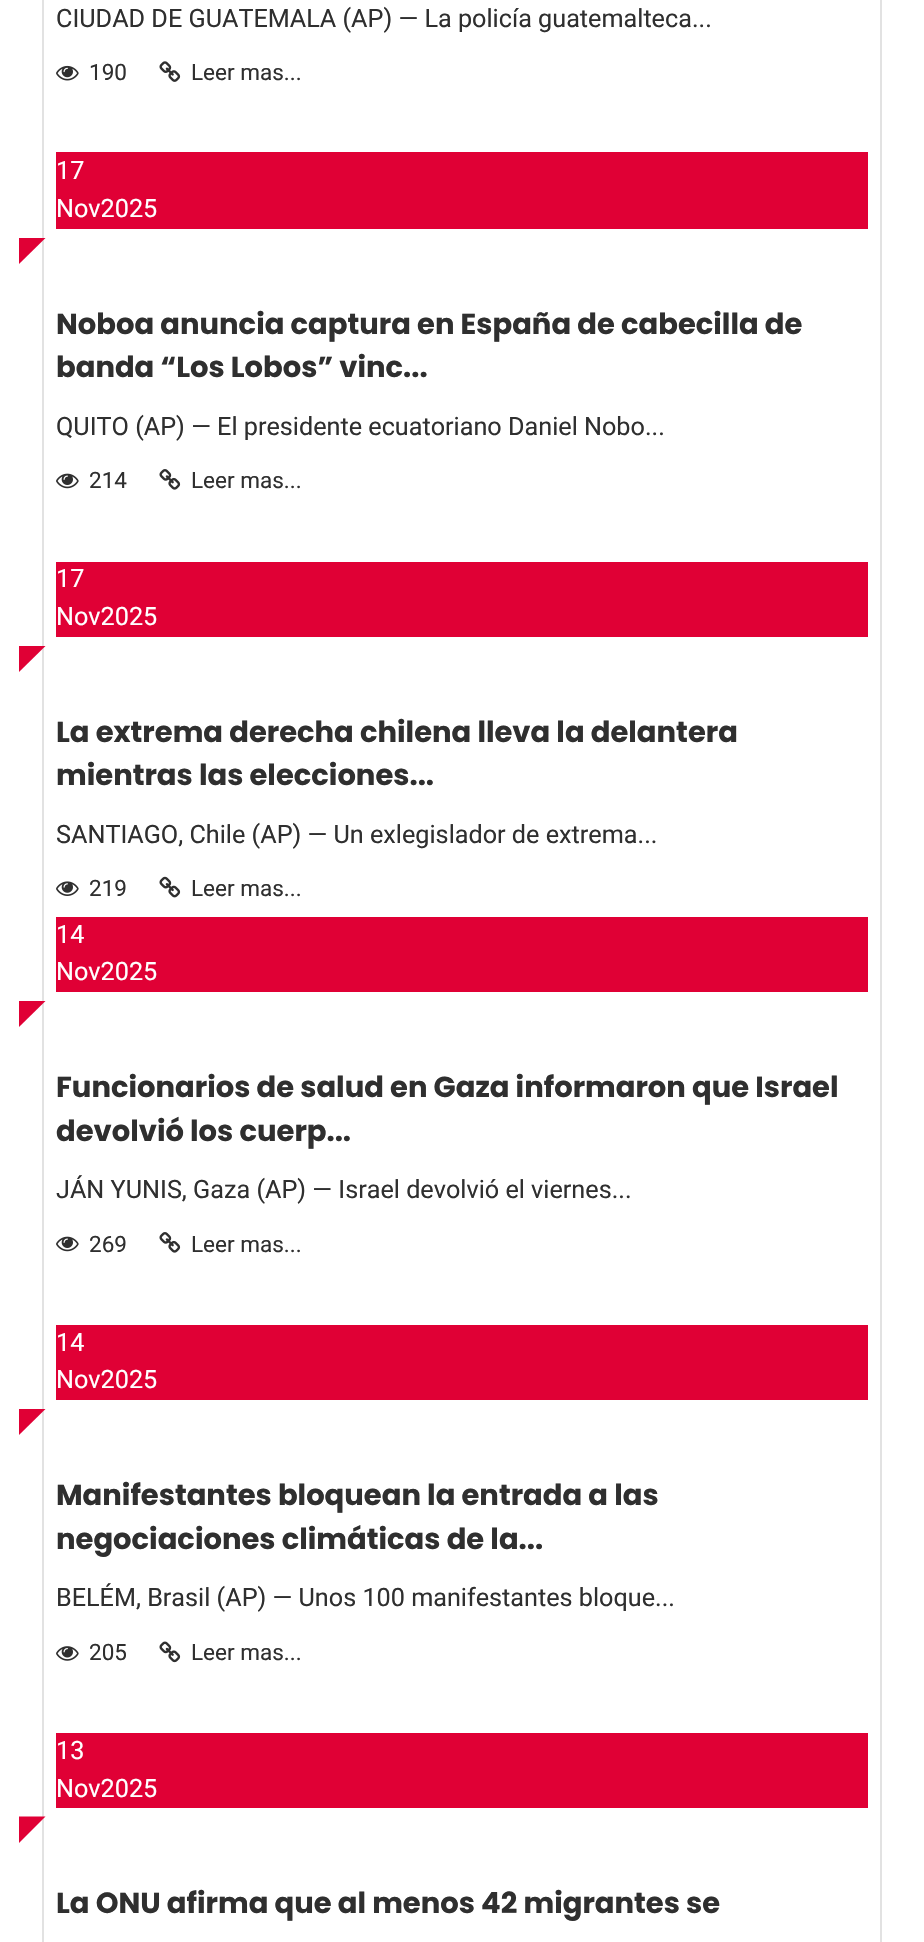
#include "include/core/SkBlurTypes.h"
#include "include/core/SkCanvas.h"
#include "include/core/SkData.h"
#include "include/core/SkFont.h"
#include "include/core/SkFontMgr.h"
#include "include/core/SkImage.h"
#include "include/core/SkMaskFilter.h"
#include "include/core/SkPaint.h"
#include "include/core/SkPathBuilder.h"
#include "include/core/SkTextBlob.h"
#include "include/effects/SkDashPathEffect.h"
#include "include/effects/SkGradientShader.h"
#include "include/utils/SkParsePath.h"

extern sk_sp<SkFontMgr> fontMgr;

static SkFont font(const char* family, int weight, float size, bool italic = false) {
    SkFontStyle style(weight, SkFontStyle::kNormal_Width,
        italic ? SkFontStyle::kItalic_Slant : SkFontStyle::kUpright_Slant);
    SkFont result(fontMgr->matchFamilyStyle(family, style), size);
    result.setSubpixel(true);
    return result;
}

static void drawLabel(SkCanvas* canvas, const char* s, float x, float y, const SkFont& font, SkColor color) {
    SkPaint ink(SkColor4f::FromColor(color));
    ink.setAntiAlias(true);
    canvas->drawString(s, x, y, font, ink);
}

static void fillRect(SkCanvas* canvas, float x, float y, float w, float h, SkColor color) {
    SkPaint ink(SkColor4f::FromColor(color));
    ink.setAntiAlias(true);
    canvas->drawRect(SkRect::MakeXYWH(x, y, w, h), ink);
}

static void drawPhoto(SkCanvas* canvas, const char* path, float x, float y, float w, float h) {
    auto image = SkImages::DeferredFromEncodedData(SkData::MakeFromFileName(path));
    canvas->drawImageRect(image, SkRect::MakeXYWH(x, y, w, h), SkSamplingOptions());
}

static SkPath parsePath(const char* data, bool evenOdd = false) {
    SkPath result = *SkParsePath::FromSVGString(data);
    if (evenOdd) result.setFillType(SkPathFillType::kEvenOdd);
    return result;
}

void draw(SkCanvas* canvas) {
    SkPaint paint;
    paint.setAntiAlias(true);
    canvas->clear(0xFFFFFFFF);
    canvas->save();
    canvas->clipRect(SkRect::MakeXYWH(42, 0, 840, 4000));
    paint.setColor(0xFFE2E2E2);
    canvas->drawPath(parsePath("M-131-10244H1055V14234H-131ZM44-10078H880V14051H44Z", true), paint);
    canvas->restore();
    SkFont font1 = font("Roboto", 400, 25.2f);
    drawLabel(canvas, "CIUDAD DE GUATEMALA (AP) — La policía guatemalteca...", 56, 27, font1, 0xFF2F2F2F);
    drawPhoto(canvas, "assets/img1.png", 56, 65, 23, 16);
    SkFont font2 = font("Roboto", 400, 22.5f);
    drawLabel(canvas, "190", 89, 80, font2, 0xFF2F2F2F);
    drawPhoto(canvas, "assets/img2.png", 159, 61, 22, 21);
    drawLabel(canvas, "Leer mas...", 191, 80, font2, 0xFF2F2F2F);
    fillRect(canvas, 56, 152, 812, 77, 0xFFE00035);
    drawLabel(canvas, "17", 56, 179, font1, 0xFFFFFFFF);
    drawLabel(canvas, "Nov2025", 56, 217, font1, 0xFFFFFFFF);
    paint.setColor(0xFFE00035);
    canvas->drawPath(parsePath("M19 238H45.5L19 264Z"), paint);
    SkFont font3 = font("Poppins", 700, 29);
    drawLabel(canvas, "Noboa anuncia captura en España de cabecilla de", 56, 334, font3, 0xFF2F2F2F);
    drawLabel(canvas, "banda “Los Lobos” vinc...", 56, 377, font3, 0xFF2F2F2F);
    drawLabel(canvas, "QUITO (AP) — El presidente ecuatoriano Daniel Nobo...", 56, 435, font1, 0xFF2F2F2F);
    drawPhoto(canvas, "assets/img3.png", 56, 473, 23, 16);
    drawLabel(canvas, "214", 89, 488, font2, 0xFF2F2F2F);
    drawPhoto(canvas, "assets/img4.png", 159, 469, 22, 21);
    drawLabel(canvas, "Leer mas...", 191, 488, font2, 0xFF2F2F2F);
    fillRect(canvas, 56, 562, 812, 75, 0xFFE00035);
    drawLabel(canvas, "17", 56, 587, font1, 0xFFFFFFFF);
    drawLabel(canvas, "Nov2025", 56, 625, font1, 0xFFFFFFFF);
    canvas->drawPath(parsePath("M19 646H45.5L19 672Z"), paint);
    drawLabel(canvas, "La extrema derecha chilena lleva la delantera", 56, 742, font3, 0xFF2F2F2F);
    drawLabel(canvas, "mientras las elecciones...", 56, 785, font3, 0xFF2F2F2F);
    drawLabel(canvas, "SANTIAGO, Chile (AP) — Un exlegislador de extrema...", 56, 843, font1, 0xFF2F2F2F);
    drawPhoto(canvas, "assets/img5.png", 56, 881, 23, 15);
    drawLabel(canvas, "219", 89, 896, font2, 0xFF2F2F2F);
    drawPhoto(canvas, "assets/img6.png", 159, 876, 22, 22);
    drawLabel(canvas, "Leer mas...", 191, 896, font2, 0xFF2F2F2F);
    fillRect(canvas, 56, 917, 812, 75, 0xFFE00035);
    drawLabel(canvas, "14", 56, 943, font1, 0xFFFFFFFF);
    drawLabel(canvas, "Nov2025", 56, 980, font1, 0xFFFFFFFF);
    canvas->drawPath(parsePath("M19 1001H45.5L19 1027Z"), paint);
    drawLabel(canvas, "Funcionarios de salud en Gaza informaron que Israel", 56, 1097, font3, 0xFF2F2F2F);
    drawLabel(canvas, "devolvió los cuerp...", 56, 1141, font3, 0xFF2F2F2F);
    drawLabel(canvas, "JÁN YUNIS, Gaza (AP) — Israel devolvió el viernes...", 56, 1198, font1, 0xFF2F2F2F);
    drawPhoto(canvas, "assets/img7.png", 56, 1236, 23, 16);
    drawLabel(canvas, "269", 89, 1252, font2, 0xFF2F2F2F);
    drawPhoto(canvas, "assets/img8.png", 159, 1232, 22, 21);
    drawLabel(canvas, "Leer mas...", 191, 1252, font2, 0xFF2F2F2F);
    fillRect(canvas, 56, 1325, 812, 75, 0xFFE00035);
    drawLabel(canvas, "14", 56, 1351, font1, 0xFFFFFFFF);
    drawLabel(canvas, "Nov2025", 56, 1388, font1, 0xFFFFFFFF);
    canvas->drawPath(parsePath("M19 1409H45.5L19 1435Z"), paint);
    drawLabel(canvas, "Manifestantes bloquean la entrada a las", 56, 1505, font3, 0xFF2F2F2F);
    drawLabel(canvas, "negociaciones climáticas de la...", 56, 1549, font3, 0xFF2F2F2F);
    drawLabel(canvas, "BELÉM, Brasil (AP) — Unos 100 manifestantes bloque...", 56, 1606, font1, 0xFF2F2F2F);
    drawPhoto(canvas, "assets/img9.png", 56, 1646, 23, 15);
    drawLabel(canvas, "205", 89, 1660, font2, 0xFF2F2F2F);
    drawPhoto(canvas, "assets/img10.png", 159, 1641, 22, 22);
    drawLabel(canvas, "Leer mas...", 191, 1660, font2, 0xFF2F2F2F);
    fillRect(canvas, 56, 1733, 812, 75, 0xFFE00035);
    drawLabel(canvas, "13", 56, 1759, font1, 0xFFFFFFFF);
    drawLabel(canvas, "Nov2025", 56, 1797, font1, 0xFFFFFFFF);
    canvas->drawPath(parsePath("M19 1816.5H45.5L19 1843Z"), paint);
    drawLabel(canvas, "La ONU afirma que al menos 42 migrantes se", 56, 1913, font3, 0xFF2F2F2F);
}
